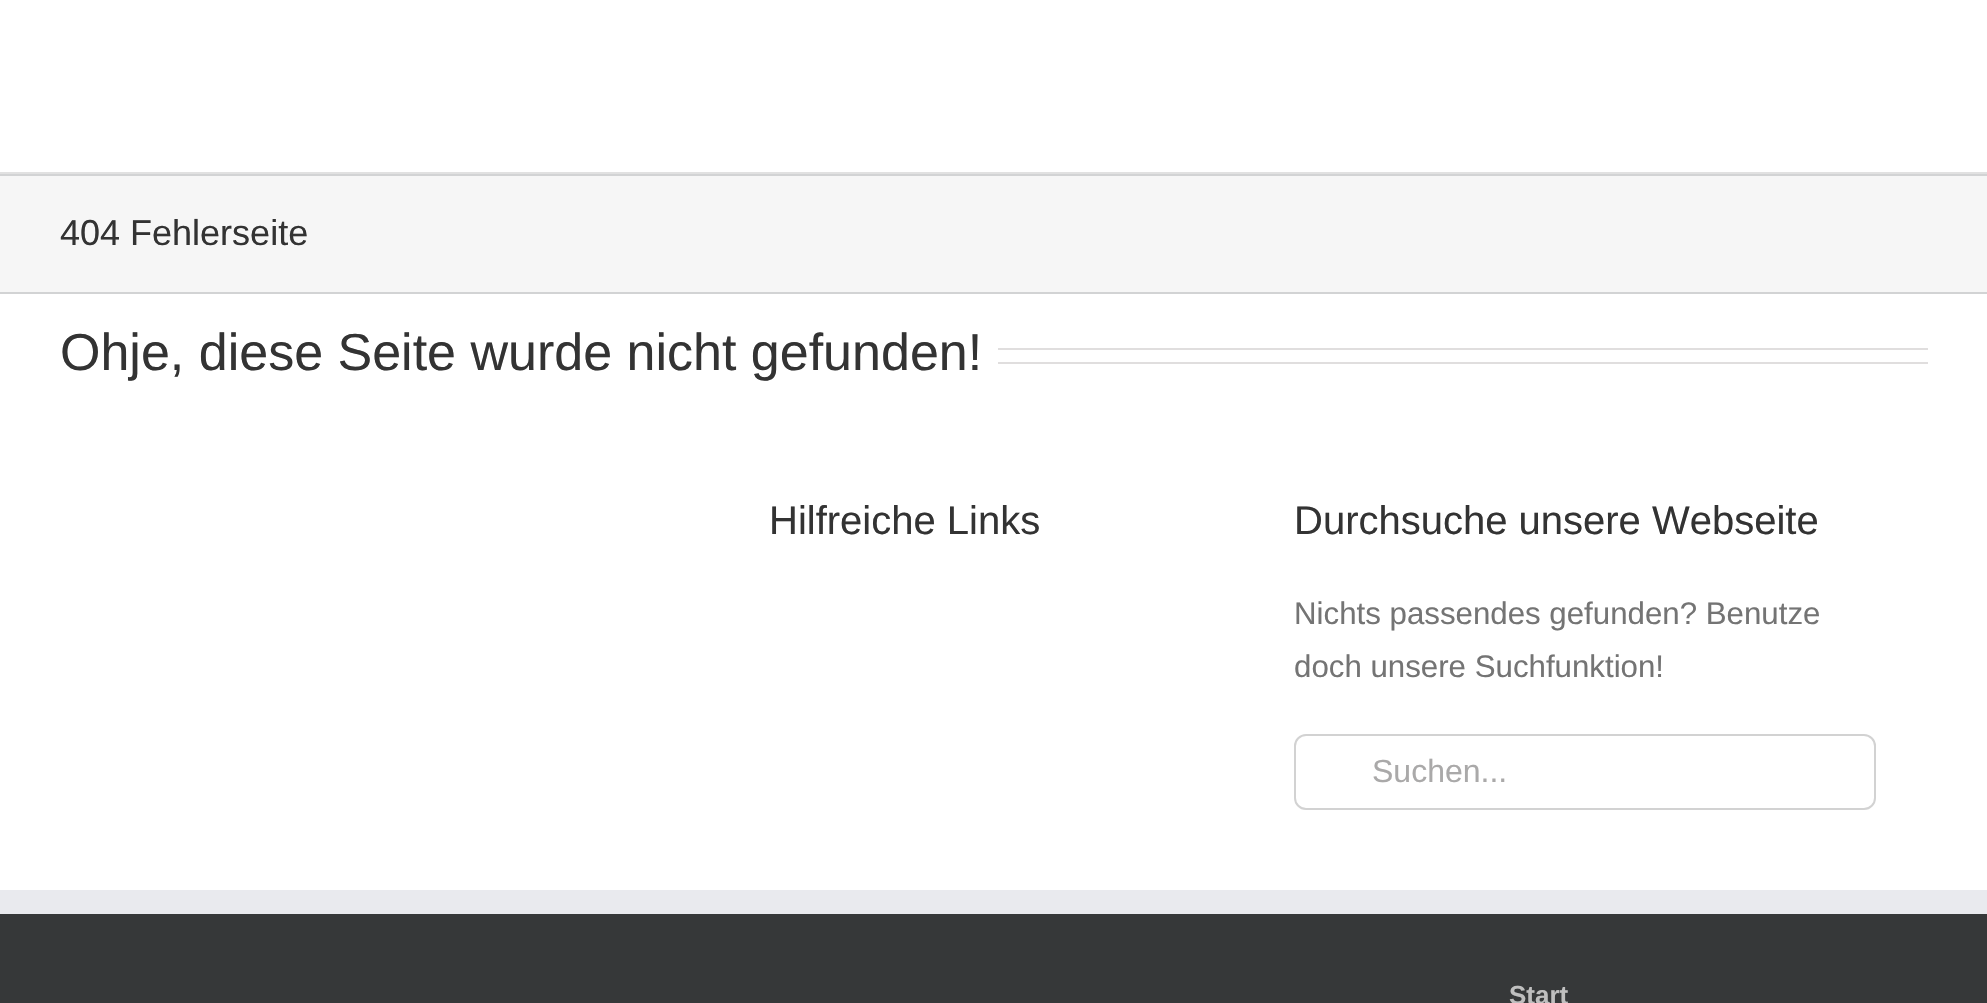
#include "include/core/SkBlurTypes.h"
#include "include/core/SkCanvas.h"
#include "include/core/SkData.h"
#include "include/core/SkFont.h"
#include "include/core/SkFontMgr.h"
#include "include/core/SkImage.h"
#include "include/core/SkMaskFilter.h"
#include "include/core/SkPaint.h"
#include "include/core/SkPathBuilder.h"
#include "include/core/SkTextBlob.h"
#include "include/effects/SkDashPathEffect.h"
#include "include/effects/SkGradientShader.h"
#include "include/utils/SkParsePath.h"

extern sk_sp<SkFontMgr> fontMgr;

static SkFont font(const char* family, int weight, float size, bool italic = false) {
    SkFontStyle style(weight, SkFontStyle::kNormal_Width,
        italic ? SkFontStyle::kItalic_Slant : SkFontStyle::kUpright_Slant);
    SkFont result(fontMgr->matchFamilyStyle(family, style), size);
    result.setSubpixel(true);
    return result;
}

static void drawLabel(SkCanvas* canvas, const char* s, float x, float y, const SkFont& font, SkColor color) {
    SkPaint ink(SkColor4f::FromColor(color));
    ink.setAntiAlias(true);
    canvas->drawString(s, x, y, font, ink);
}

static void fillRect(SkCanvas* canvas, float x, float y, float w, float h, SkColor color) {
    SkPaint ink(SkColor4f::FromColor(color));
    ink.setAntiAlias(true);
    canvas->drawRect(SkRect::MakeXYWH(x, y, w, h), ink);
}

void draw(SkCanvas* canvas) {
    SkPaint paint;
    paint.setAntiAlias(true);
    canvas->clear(0xFFFFFFFF);
    fillRect(canvas, 0, 172, 1987, 2, 0xFFE1E1E1);
    fillRect(canvas, 0, 176, 1987, 116, 0xFFF6F6F6);
    fillRect(canvas, 0, 174, 1987, 2, 0xFFD2D3D4);
    fillRect(canvas, 0, 292, 1987, 2, 0xFFD2D3D4);
    SkFont font1 = font("Liberation Sans", 400, 36);
    drawLabel(canvas, "404 Fehlerseite", 60, 245, font1, 0xFF333333);
    SkFont font2 = font("Liberation Sans", 400, 52);
    drawLabel(canvas, "Ohje, diese Seite wurde nicht gefunden!", 60, 370, font2, 0xFF333333);
    fillRect(canvas, 998, 348, 930, 2, 0xFFE0DEDE);
    fillRect(canvas, 998, 362, 930, 2, 0xFFE0DEDE);
    SkFont font3 = font("Liberation Sans", 400, 40);
    drawLabel(canvas, "Hilfreiche Links", 769, 534, font3, 0xFF333333);
    drawLabel(canvas, "Durchsuche unsere Webseite", 1294, 534, font3, 0xFF333333);
    SkFont font4 = font("Liberation Sans", 400, 31.25f);
    drawLabel(canvas, "Nichts passendes gefunden? Benutze", 1294, 624, font4, 0xFF747474);
    drawLabel(canvas, "doch unsere Suchfunktion!", 1294, 677, font4, 0xFF747474);
    paint.setStroke(true);
    paint.setStrokeWidth(2);
    paint.setColor(0xFFD2D2D2);
    canvas->drawRoundRect(SkRect::MakeXYWH(1295, 735, 580, 74), 11, 11, paint);
    SkFont font5 = font("Liberation Sans", 400, 32);
    drawLabel(canvas, "Suchen...", 1372, 782, font5, 0xFFAAA9A9);
    fillRect(canvas, 0, 914, 1987, 89, 0xFF363839);
    fillRect(canvas, 0, 890, 1987, 24, 0xFFE9EAEE);
    SkFont font6 = font("Liberation Sans", 700, 26);
    drawLabel(canvas, "Start", 1509, 1004, font6, 0xFFBFBFBF);
}
